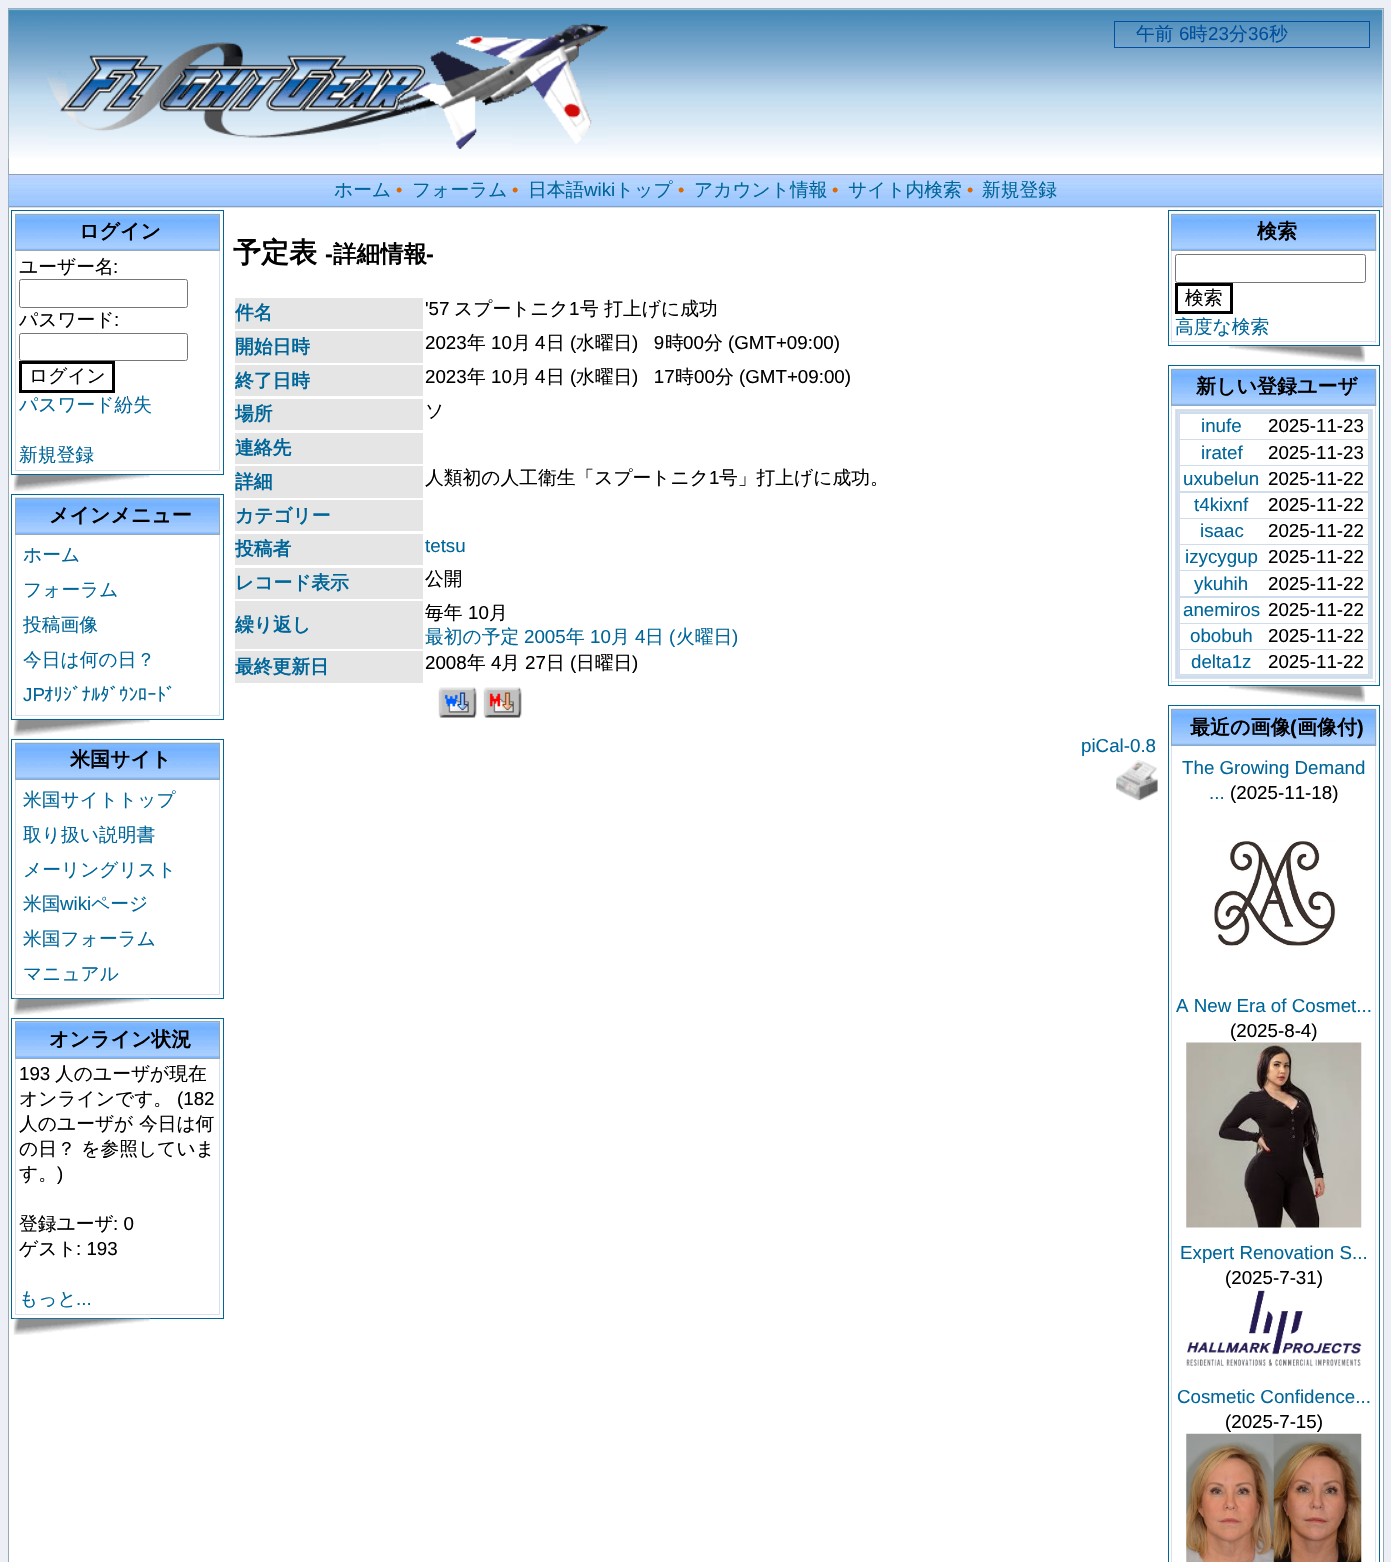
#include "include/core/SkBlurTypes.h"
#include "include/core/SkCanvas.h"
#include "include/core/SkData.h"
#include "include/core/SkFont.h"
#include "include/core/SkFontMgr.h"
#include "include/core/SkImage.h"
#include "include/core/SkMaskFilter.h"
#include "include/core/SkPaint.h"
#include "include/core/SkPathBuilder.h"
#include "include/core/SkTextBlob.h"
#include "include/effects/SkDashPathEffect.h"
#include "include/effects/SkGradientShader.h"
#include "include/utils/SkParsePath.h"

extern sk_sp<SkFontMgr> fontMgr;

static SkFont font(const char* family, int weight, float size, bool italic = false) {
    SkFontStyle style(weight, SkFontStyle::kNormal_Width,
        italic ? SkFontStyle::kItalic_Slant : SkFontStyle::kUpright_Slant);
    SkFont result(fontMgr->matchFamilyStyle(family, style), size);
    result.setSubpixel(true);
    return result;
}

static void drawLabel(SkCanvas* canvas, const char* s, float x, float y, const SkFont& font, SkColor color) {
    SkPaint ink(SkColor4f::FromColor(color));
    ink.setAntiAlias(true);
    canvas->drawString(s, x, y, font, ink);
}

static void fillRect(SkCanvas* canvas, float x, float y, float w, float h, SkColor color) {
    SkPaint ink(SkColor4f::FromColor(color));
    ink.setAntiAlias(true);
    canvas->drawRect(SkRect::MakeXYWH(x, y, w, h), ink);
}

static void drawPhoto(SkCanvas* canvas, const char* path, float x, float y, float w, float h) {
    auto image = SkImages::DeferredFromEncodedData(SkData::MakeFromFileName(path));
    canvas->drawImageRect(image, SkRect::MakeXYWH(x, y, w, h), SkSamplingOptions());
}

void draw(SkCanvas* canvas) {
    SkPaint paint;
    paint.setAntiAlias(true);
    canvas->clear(0xFFECF0F6);
    paint.setColor(0xFFFFFFFF);
    canvas->drawRect(SkRect::MakeXYWH(8.5f, 8.5f, 1375, 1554), paint);
    paint.setStroke(true);
    paint.setStrokeWidth(1);
    paint.setColor(0xFF98AAB1);
    canvas->drawRect(SkRect::MakeXYWH(8.5f, 8.5f, 1375, 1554), paint);
    drawPhoto(canvas, "assets/img1.png", 8, 8, 1375, 151);
    drawPhoto(canvas, "assets/img2.png", 47, 23, 561, 127);
    paint.setColor(0xFF00509E);
    canvas->drawRect(SkRect::MakeXYWH(1114.5f, 21.5f, 255, 26), paint);
    SkFont font1 = font("WenQuanYi Zen Hei", 500, 18.75f);
    drawLabel(canvas, "午前", 1136, 40, font1, 0xFF00509E);
    SkFont font2 = font("Liberation Sans", 400, 18.75f);
    drawLabel(canvas, "6", 1179, 40, font2, 0xFF00509E);
    drawLabel(canvas, "時", 1189, 40, font1, 0xFF00509E);
    drawLabel(canvas, "23", 1208, 40, font2, 0xFF00509E);
    drawLabel(canvas, "分", 1229, 40, font1, 0xFF00509E);
    drawLabel(canvas, "36", 1248, 40, font2, 0xFF00509E);
    drawLabel(canvas, "秒", 1269, 40, font1, 0xFF00509E);
    fillRect(canvas, 1382, 175, 1, 31, 0xFFE5EBF3);
    drawPhoto(canvas, "assets/img3.png", 8, 175, 1375, 33);
    fillRect(canvas, 9, 174, 1374, 1, 0xFF91A0AE);
    fillRect(canvas, 9, 206, 1374, 1, 0xFF91A0AE);
    drawLabel(canvas, "ホーム", 334, 196, font1, 0xFF006699);
    SkFont font3 = font("Liberation Sans", 400, 18);
    drawLabel(canvas, "•", 396, 196, font3, 0xFFDD6900);
    drawLabel(canvas, "フォーラム", 412, 196, font1, 0xFF006699);
    drawLabel(canvas, "•", 512, 196, font3, 0xFFDD6900);
    drawLabel(canvas, "日本語", 528, 196, font1, 0xFF006699);
    drawLabel(canvas, "wiki", 584, 196, font2, 0xFF006699);
    drawLabel(canvas, "トップ", 615, 196, font1, 0xFF006699);
    drawLabel(canvas, "•", 678, 196, font3, 0xFFDD6900);
    drawLabel(canvas, "アカウント情報", 694, 196, font1, 0xFF006699);
    drawLabel(canvas, "•", 832, 196, font3, 0xFFDD6900);
    drawLabel(canvas, "サイト内検索", 848, 196, font1, 0xFF006699);
    drawLabel(canvas, "•", 967, 196, font3, 0xFFDD6900);
    drawLabel(canvas, "新規登録", 982, 196, font1, 0xFF006699);
    paint.setColor(0xFF006699);
    canvas->drawRect(SkRect::MakeXYWH(11.5f, 210.5f, 212, 264), paint);
    drawPhoto(canvas, "assets/img4.png", 15, 213, 205, 37);
    paint.setColor(0xFF98AAB1);
    canvas->drawRect(SkRect::MakeXYWH(15.5f, 214.5f, 204, 36), paint);
    SkFont font4 = font("WenQuanYi Zen Hei", 700, 20);
    drawLabel(canvas, "ログイン", 79, 238, font4, 0xFF000000);
    fillRect(canvas, 219, 251, 1, 220, 0xFFD9E2EC);
    fillRect(canvas, 15, 470, 205, 1, 0xFFD9E2EC);
    fillRect(canvas, 15, 251, 1, 220, 0xFFD9E2EC);
    drawLabel(canvas, "ユーザー名", 19, 273, font1, 0xFF000000);
    drawLabel(canvas, ":", 113, 273, font2, 0xFF000000);
    paint.setColor(0xFF767676);
    canvas->drawRoundRect(SkRect::MakeXYWH(19.5f, 279.5f, 168, 28), 2, 2, paint);
    drawLabel(canvas, "パスワード", 19, 326, font1, 0xFF000000);
    drawLabel(canvas, ":", 114, 326, font2, 0xFF000000);
    canvas->drawRoundRect(SkRect::MakeXYWH(19.5f, 333.5f, 168, 27), 2, 2, paint);
    paint.setStrokeWidth(3);
    paint.setColor(0xFF000000);
    canvas->drawRect(SkRect::MakeXYWH(20.5f, 362.5f, 93, 29), paint);
    drawLabel(canvas, "ログイン", 29, 382, font1, 0xFF000000);
    drawLabel(canvas, "パスワード紛失", 19, 411, font1, 0xFF006699);
    drawLabel(canvas, "新規登録", 19, 461, font1, 0xFF006699);
    drawPhoto(canvas, "assets/img5.png", 13, 475, 137, 17);
    paint.setStrokeWidth(1);
    paint.setColor(0xFF006699);
    canvas->drawRect(SkRect::MakeXYWH(11.5f, 494.5f, 212, 225), paint);
    drawPhoto(canvas, "assets/img6.png", 15, 497, 205, 37);
    paint.setColor(0xFF98AAB1);
    canvas->drawRect(SkRect::MakeXYWH(15.5f, 498.5f, 204, 36), paint);
    drawLabel(canvas, "メインメニュー", 49, 522, font4, 0xFF000000);
    fillRect(canvas, 219, 535, 1, 181, 0xFFD9E2EC);
    fillRect(canvas, 15, 715, 205, 1, 0xFFD9E2EC);
    fillRect(canvas, 15, 535, 1, 181, 0xFFD9E2EC);
    drawLabel(canvas, "ホーム", 23, 561, font1, 0xFF006699);
    drawLabel(canvas, "フォーラム", 23, 596, font1, 0xFF006699);
    drawLabel(canvas, "投稿画像", 23, 631, font1, 0xFF006699);
    drawLabel(canvas, "今日は何の日？", 23, 666, font1, 0xFF006699);
    drawLabel(canvas, "JP", 23, 701, font2, 0xFF006699);
    SkFont font5 = font("IPAPGothic", 400, 18.75f);
    drawLabel(canvas, "ｵﾘｼﾞﾅﾙﾀﾞｳﾝﾛｰﾄﾞ", 44, 701, font5, 0xFF006699);
    drawPhoto(canvas, "assets/img5.png", 13, 720, 137, 17);
    paint.setColor(0xFF006699);
    canvas->drawRect(SkRect::MakeXYWH(11.5f, 739.5f, 212, 259), paint);
    drawPhoto(canvas, "assets/img6.png", 15, 742, 205, 37);
    paint.setColor(0xFF98AAB1);
    canvas->drawRect(SkRect::MakeXYWH(15.5f, 743.5f, 204, 36), paint);
    drawLabel(canvas, "米国サイト", 70, 766, font4, 0xFF000000);
    fillRect(canvas, 219, 780, 1, 215, 0xFFD9E2EC);
    fillRect(canvas, 15, 994, 205, 1, 0xFFD9E2EC);
    fillRect(canvas, 15, 780, 1, 215, 0xFFD9E2EC);
    drawLabel(canvas, "米国サイトトップ", 23, 806, font1, 0xFF006699);
    drawLabel(canvas, "取り扱い説明書", 23, 841, font1, 0xFF006699);
    drawLabel(canvas, "メーリングリスト", 23, 876, font1, 0xFF006699);
    drawLabel(canvas, "米国", 23, 910, font1, 0xFF006699);
    drawLabel(canvas, "wiki", 60, 910, font2, 0xFF006699);
    drawLabel(canvas, "ページ", 91, 910, font1, 0xFF006699);
    drawLabel(canvas, "米国フォーラム", 23, 945, font1, 0xFF006699);
    drawLabel(canvas, "マニュアル", 23, 980, font1, 0xFF006699);
    drawPhoto(canvas, "assets/img7.png", 13, 998, 138, 17);
    paint.setColor(0xFF006699);
    canvas->drawRect(SkRect::MakeXYWH(11.5f, 1018.5f, 212, 300), paint);
    drawPhoto(canvas, "assets/img8.png", 16, 1022, 203, 36);
    paint.setColor(0xFF98AAB1);
    canvas->drawRect(SkRect::MakeXYWH(15.5f, 1021.5f, 204, 37), paint);
    drawLabel(canvas, "オンライン状況", 49, 1046, font4, 0xFF000000);
    fillRect(canvas, 219, 1059, 1, 256, 0xFFD9E2EC);
    fillRect(canvas, 15, 1314, 205, 1, 0xFFD9E2EC);
    fillRect(canvas, 15, 1059, 1, 256, 0xFFD9E2EC);
    drawLabel(canvas, "193", 19, 1080, font2, 0xFF000000);
    drawLabel(canvas, "人のユーザが現在", 55, 1080, font1, 0xFF000000);
    drawLabel(canvas, "オンラインです。", 19, 1105, font1, 0xFF000000);
    drawLabel(canvas, "(182", 177, 1105, font2, 0xFF000000);
    drawLabel(canvas, "人のユーザが 今日は何", 19, 1130, font1, 0xFF000000);
    drawLabel(canvas, "の日？ を参照していま", 19, 1155, font1, 0xFF000000);
    drawLabel(canvas, "す。", 19, 1180, font1, 0xFF000000);
    drawLabel(canvas, ")", 57, 1180, font2, 0xFF000000);
    drawLabel(canvas, "登録ユーザ", 19, 1230, font1, 0xFF000000);
    drawLabel(canvas, ": 0", 113, 1230, font2, 0xFF000000);
    drawLabel(canvas, "ゲスト", 19, 1255, font1, 0xFF000000);
    drawLabel(canvas, ": 193", 76, 1255, font2, 0xFF000000);
    drawLabel(canvas, "もっと", 19, 1305, font1, 0xFF006699);
    drawLabel(canvas, "...", 76, 1305, font2, 0xFF006699);
    drawPhoto(canvas, "assets/img7.png", 13, 1318, 138, 17);
    SkFont font6 = font("WenQuanYi Zen Hei", 700, 28);
    drawLabel(canvas, "予定表", 233, 262, font6, 0xFF000000);
    SkFont font7 = font("Liberation Sans", 700, 23.5f);
    drawLabel(canvas, "-", 325, 262, font7, 0xFF000000);
    SkFont font8 = font("WenQuanYi Zen Hei", 700, 23.5f);
    drawLabel(canvas, "詳細情報", 333, 262, font8, 0xFF000000);
    drawLabel(canvas, "-", 426, 262, font7, 0xFF000000);
    fillRect(canvas, 235, 298, 188, 31, 0xFFE5E5E5);
    SkFont font9 = font("WenQuanYi Zen Hei", 700, 18.75f);
    drawLabel(canvas, "件名", 235, 319, font9, 0xFF006699);
    drawLabel(canvas, "'57", 425, 315, font2, 0xFF000000);
    drawLabel(canvas, "スプートニク", 454, 315, font1, 0xFF000000);
    drawLabel(canvas, "1", 569, 315, font2, 0xFF000000);
    drawLabel(canvas, "号 打上げに成功", 580, 315, font1, 0xFF000000);
    fillRect(canvas, 235, 331, 188, 32, 0xFFE5E5E5);
    drawLabel(canvas, "開始日時", 235, 353, font9, 0xFF006699);
    drawLabel(canvas, "2023", 425, 349, font2, 0xFF000000);
    drawLabel(canvas, "年", 467, 349, font1, 0xFF000000);
    drawLabel(canvas, "10", 491, 349, font2, 0xFF000000);
    drawLabel(canvas, "月", 512, 349, font1, 0xFF000000);
    drawLabel(canvas, "4", 535, 349, font2, 0xFF000000);
    drawLabel(canvas, "日", 546, 349, font1, 0xFF000000);
    drawLabel(canvas, "(", 570, 349, font2, 0xFF000000);
    drawLabel(canvas, "水曜日", 576, 349, font1, 0xFF000000);
    drawLabel(canvas, ")   9", 632, 349, font2, 0xFF000000);
    drawLabel(canvas, "時", 665, 349, font1, 0xFF000000);
    drawLabel(canvas, "00", 683, 349, font2, 0xFF000000);
    drawLabel(canvas, "分", 704, 349, font1, 0xFF000000);
    drawLabel(canvas, "(GMT+09:00)", 728, 349, font2, 0xFF000000);
    fillRect(canvas, 235, 365, 188, 31, 0xFFE5E5E5);
    drawLabel(canvas, "終了日時", 235, 387, font9, 0xFF006699);
    drawLabel(canvas, "2023", 425, 383, font2, 0xFF000000);
    drawLabel(canvas, "年", 467, 383, font1, 0xFF000000);
    drawLabel(canvas, "10", 491, 383, font2, 0xFF000000);
    drawLabel(canvas, "月", 512, 383, font1, 0xFF000000);
    drawLabel(canvas, "4", 535, 383, font2, 0xFF000000);
    drawLabel(canvas, "日", 546, 383, font1, 0xFF000000);
    drawLabel(canvas, "(", 570, 383, font2, 0xFF000000);
    drawLabel(canvas, "水曜日", 576, 383, font1, 0xFF000000);
    drawLabel(canvas, ")   17", 632, 383, font2, 0xFF000000);
    drawLabel(canvas, "時", 675, 383, font1, 0xFF000000);
    drawLabel(canvas, "00", 694, 383, font2, 0xFF000000);
    drawLabel(canvas, "分", 715, 383, font1, 0xFF000000);
    drawLabel(canvas, "(GMT+09:00)", 739, 383, font2, 0xFF000000);
    fillRect(canvas, 235, 399, 188, 31, 0xFFE5E5E5);
    drawLabel(canvas, "場所", 235, 420, font9, 0xFF006699);
    drawLabel(canvas, "ソ", 425, 417, font1, 0xFF000000);
    fillRect(canvas, 235, 433, 188, 31, 0xFFE5E5E5);
    drawLabel(canvas, "連絡先", 235, 454, font9, 0xFF006699);
    fillRect(canvas, 235, 466, 188, 32, 0xFFE5E5E5);
    drawLabel(canvas, "詳細", 235, 488, font9, 0xFF006699);
    drawLabel(canvas, "人類初の人工衛生「スプートニク", 425, 484, font1, 0xFF000000);
    drawLabel(canvas, "1", 709, 484, font2, 0xFF000000);
    drawLabel(canvas, "号」打上げに成功。", 719, 484, font1, 0xFF000000);
    fillRect(canvas, 235, 500, 188, 31, 0xFFE5E5E5);
    drawLabel(canvas, "カテゴリー", 235, 522, font9, 0xFF006699);
    fillRect(canvas, 235, 534, 188, 31, 0xFFE5E5E5);
    drawLabel(canvas, "投稿者", 235, 555, font9, 0xFF006699);
    drawLabel(canvas, "tetsu", 425, 552, font2, 0xFF006699);
    fillRect(canvas, 235, 568, 188, 31, 0xFFE5E5E5);
    drawLabel(canvas, "レコード表示", 235, 589, font9, 0xFF006699);
    drawLabel(canvas, "公開", 425, 585, font1, 0xFF000000);
    fillRect(canvas, 235, 601, 188, 48, 0xFFE5E5E5);
    drawLabel(canvas, "繰り返し", 235, 631, font9, 0xFF006699);
    drawLabel(canvas, "毎年", 425, 619, font1, 0xFF000000);
    drawLabel(canvas, "10", 468, 619, font2, 0xFF000000);
    drawLabel(canvas, "月", 489, 619, font1, 0xFF000000);
    drawLabel(canvas, "最初の予定", 425, 643, font1, 0xFF006699);
    drawLabel(canvas, "2005", 524, 643, font2, 0xFF006699);
    drawLabel(canvas, "年", 566, 643, font1, 0xFF006699);
    drawLabel(canvas, "10", 590, 643, font2, 0xFF006699);
    drawLabel(canvas, "月", 611, 643, font1, 0xFF006699);
    drawLabel(canvas, "4", 635, 643, font2, 0xFF006699);
    drawLabel(canvas, "日", 645, 643, font1, 0xFF006699);
    drawLabel(canvas, "(", 669, 643, font2, 0xFF006699);
    drawLabel(canvas, "火曜日", 676, 643, font1, 0xFF006699);
    drawLabel(canvas, ")", 732, 643, font2, 0xFF006699);
    fillRect(canvas, 235, 651, 188, 32, 0xFFE5E5E5);
    drawLabel(canvas, "最終更新日", 235, 673, font9, 0xFF006699);
    drawLabel(canvas, "2008", 425, 669, font2, 0xFF000000);
    drawLabel(canvas, "年", 467, 669, font1, 0xFF000000);
    drawLabel(canvas, "4", 491, 669, font2, 0xFF000000);
    drawLabel(canvas, "月", 501, 669, font1, 0xFF000000);
    drawLabel(canvas, "27", 525, 669, font2, 0xFF000000);
    drawLabel(canvas, "日", 546, 669, font1, 0xFF000000);
    drawLabel(canvas, "(", 570, 669, font2, 0xFF000000);
    drawLabel(canvas, "日曜日", 576, 669, font1, 0xFF000000);
    drawLabel(canvas, ")", 632, 669, font2, 0xFF000000);
    drawPhoto(canvas, "assets/img9.png", 438, 687, 39, 31);
    drawPhoto(canvas, "assets/img10.png", 483, 687, 39, 31);
    drawLabel(canvas, "piCal-0.8", 1081, 752, font2, 0xFF006699);
    drawPhoto(canvas, "assets/img11.png", 1116, 760, 42, 41);
    paint.setColor(0xFF006699);
    canvas->drawRect(SkRect::MakeXYWH(1168.5f, 210.5f, 211, 135), paint);
    drawPhoto(canvas, "assets/img12.png", 1171, 213, 206, 39);
    paint.setColor(0xFF98AAB1);
    canvas->drawRect(SkRect::MakeXYWH(1171.5f, 214.5f, 204, 36), paint);
    drawLabel(canvas, "検索", 1257, 238, font4, 0xFF000000);
    fillRect(canvas, 1172, 251, 203, 1, 0xFFFEFEFE);
    fillRect(canvas, 1375, 251, 1, 92, 0xFFD9E2EC);
    fillRect(canvas, 1171, 341, 205, 1, 0xFFD9E2EC);
    fillRect(canvas, 1171, 251, 1, 92, 0xFFD9E2EC);
    paint.setColor(0xFF767676);
    canvas->drawRoundRect(SkRect::MakeXYWH(1175.5f, 254.5f, 190, 28), 2, 2, paint);
    paint.setStrokeWidth(3);
    paint.setColor(0xFF000000);
    canvas->drawRect(SkRect::MakeXYWH(1176.5f, 284.5f, 55, 28), paint);
    drawLabel(canvas, "検索", 1185, 304, font1, 0xFF000000);
    drawLabel(canvas, "高度な検索", 1175, 333, font1, 0xFF006699);
    drawPhoto(canvas, "assets/img13.png", 1228, 346, 138, 17);
    paint.setStrokeWidth(1);
    paint.setColor(0xFF006699);
    canvas->drawRect(SkRect::MakeXYWH(1168.5f, 365.5f, 211, 320), paint);
    drawPhoto(canvas, "assets/img12.png", 1171, 368, 206, 39);
    paint.setColor(0xFF98AAB1);
    canvas->drawRect(SkRect::MakeXYWH(1171.5f, 369.5f, 204, 36), paint);
    drawLabel(canvas, "新しい登録ユーザ", 1196, 393, font4, 0xFF000000);
    fillRect(canvas, 1172, 406, 203, 1, 0xFFFEFEFE);
    fillRect(canvas, 1375, 406, 1, 277, 0xFFD9E2EC);
    fillRect(canvas, 1171, 681, 205, 1, 0xFFD9E2EC);
    fillRect(canvas, 1171, 406, 1, 277, 0xFFD9E2EC);
    paint.setStroke(false);
    paint.setColor(0xFFCEDCEC);
    canvas->drawRect(SkRect::MakeXYWH(1175.5f, 409.5f, 197, 269), paint);
    paint.setStroke(true);
    paint.setColor(0xFFD9E2EC);
    canvas->drawRect(SkRect::MakeXYWH(1175.5f, 409.5f, 197, 269), paint);
    canvas->drawRect(SkRect::MakeXYWH(1178.5f, 411.5f, 191, 264), paint);
    fillRect(canvas, 1180, 414, 188, 25, 0xFFFFFFFF);
    drawLabel(canvas, "inufe", 1201, 432, font2, 0xFF006699);
    drawLabel(canvas, "2025-11-23", 1268, 432, font2, 0xFF000000);
    fillRect(canvas, 1180, 440, 188, 25, 0xFFFFFFFF);
    drawLabel(canvas, "iratef", 1201, 459, font2, 0xFF006699);
    drawLabel(canvas, "2025-11-23", 1268, 459, font2, 0xFF000000);
    fillRect(canvas, 1180, 466, 188, 25, 0xFFFFFFFF);
    drawLabel(canvas, "uxubelun", 1183, 485, font2, 0xFF006699);
    drawLabel(canvas, "2025-11-22", 1268, 485, font2, 0xFF000000);
    fillRect(canvas, 1180, 493, 188, 25, 0xFFFFFFFF);
    drawLabel(canvas, "t4kixnf", 1194, 511, font2, 0xFF006699);
    drawLabel(canvas, "2025-11-22", 1268, 511, font2, 0xFF000000);
    fillRect(canvas, 1180, 519, 188, 25, 0xFFFFFFFF);
    drawLabel(canvas, "isaac", 1200, 537, font2, 0xFF006699);
    drawLabel(canvas, "2025-11-22", 1268, 537, font2, 0xFF000000);
    fillRect(canvas, 1180, 545, 188, 25, 0xFFFFFFFF);
    drawLabel(canvas, "izycygup", 1185, 563, font2, 0xFF006699);
    drawLabel(canvas, "2025-11-22", 1268, 563, font2, 0xFF000000);
    fillRect(canvas, 1180, 571, 188, 25, 0xFFFFFFFF);
    drawLabel(canvas, "ykuhih", 1194, 590, font2, 0xFF006699);
    drawLabel(canvas, "2025-11-22", 1268, 590, font2, 0xFF000000);
    fillRect(canvas, 1180, 598, 188, 25, 0xFFFFFFFF);
    drawLabel(canvas, "anemiros", 1183, 616, font2, 0xFF006699);
    drawLabel(canvas, "2025-11-22", 1268, 616, font2, 0xFF000000);
    fillRect(canvas, 1180, 624, 188, 25, 0xFFFFFFFF);
    drawLabel(canvas, "obobuh", 1190, 642, font2, 0xFF006699);
    drawLabel(canvas, "2025-11-22", 1268, 642, font2, 0xFF000000);
    fillRect(canvas, 1180, 650, 188, 24, 0xFFFFFFFF);
    drawLabel(canvas, "delta1z", 1191, 668, font2, 0xFF006699);
    drawLabel(canvas, "2025-11-22", 1268, 668, font2, 0xFF000000);
    drawPhoto(canvas, "assets/img13.png", 1228, 686, 138, 17);
    paint.setColor(0xFF006699);
    canvas->drawRect(SkRect::MakeXYWH(1168.5f, 705.5f, 211, 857), paint);
    drawPhoto(canvas, "assets/img12.png", 1171, 708, 206, 39);
    paint.setColor(0xFF98AAB1);
    canvas->drawRect(SkRect::MakeXYWH(1171.5f, 709.5f, 204, 36), paint);
    drawLabel(canvas, "最近の画像", 1190, 734, font4, 0xFF000000);
    SkFont font10 = font("Liberation Sans", 700, 20);
    drawLabel(canvas, "(", 1290, 734, font10, 0xFF000000);
    drawLabel(canvas, "画像付", 1297, 734, font4, 0xFF000000);
    drawLabel(canvas, ")", 1357, 734, font10, 0xFF000000);
    fillRect(canvas, 1172, 746, 203, 1, 0xFFFEFEFE);
    fillRect(canvas, 1375, 746, 1, 816, 0xFFD9E2EC);
    fillRect(canvas, 1171, 746, 1, 816, 0xFFD9E2EC);
    drawLabel(canvas, "The Growing Demand", 1182, 774, font2, 0xFF006699);
    drawLabel(canvas, "...", 1209, 799, font2, 0xFF006699);
    drawLabel(canvas, "(2025-11-18)", 1230, 799, font2, 0xFF000000);
    drawPhoto(canvas, "assets/img14.png", 1214, 841, 122, 105);
    drawLabel(canvas, "A New Era of Cosmet...", 1176, 1012, font2, 0xFF006699);
    drawLabel(canvas, "(2025-8-4)", 1230, 1037, font2, 0xFF000000);
    drawPhoto(canvas, "assets/img15.png", 1186, 1042, 176, 186);
    drawLabel(canvas, "Expert Renovation S...", 1180, 1259, font2, 0xFF006699);
    drawLabel(canvas, "(2025-7-31)", 1225, 1284, font2, 0xFF000000);
    drawPhoto(canvas, "assets/img16.png", 1186, 1290, 176, 77);
    drawLabel(canvas, "Cosmetic Confidence...", 1177, 1403, font2, 0xFF006699);
    drawLabel(canvas, "(2025-7-15)", 1225, 1428, font2, 0xFF000000);
    drawPhoto(canvas, "assets/img17.png", 1186, 1433, 176, 129);
}
